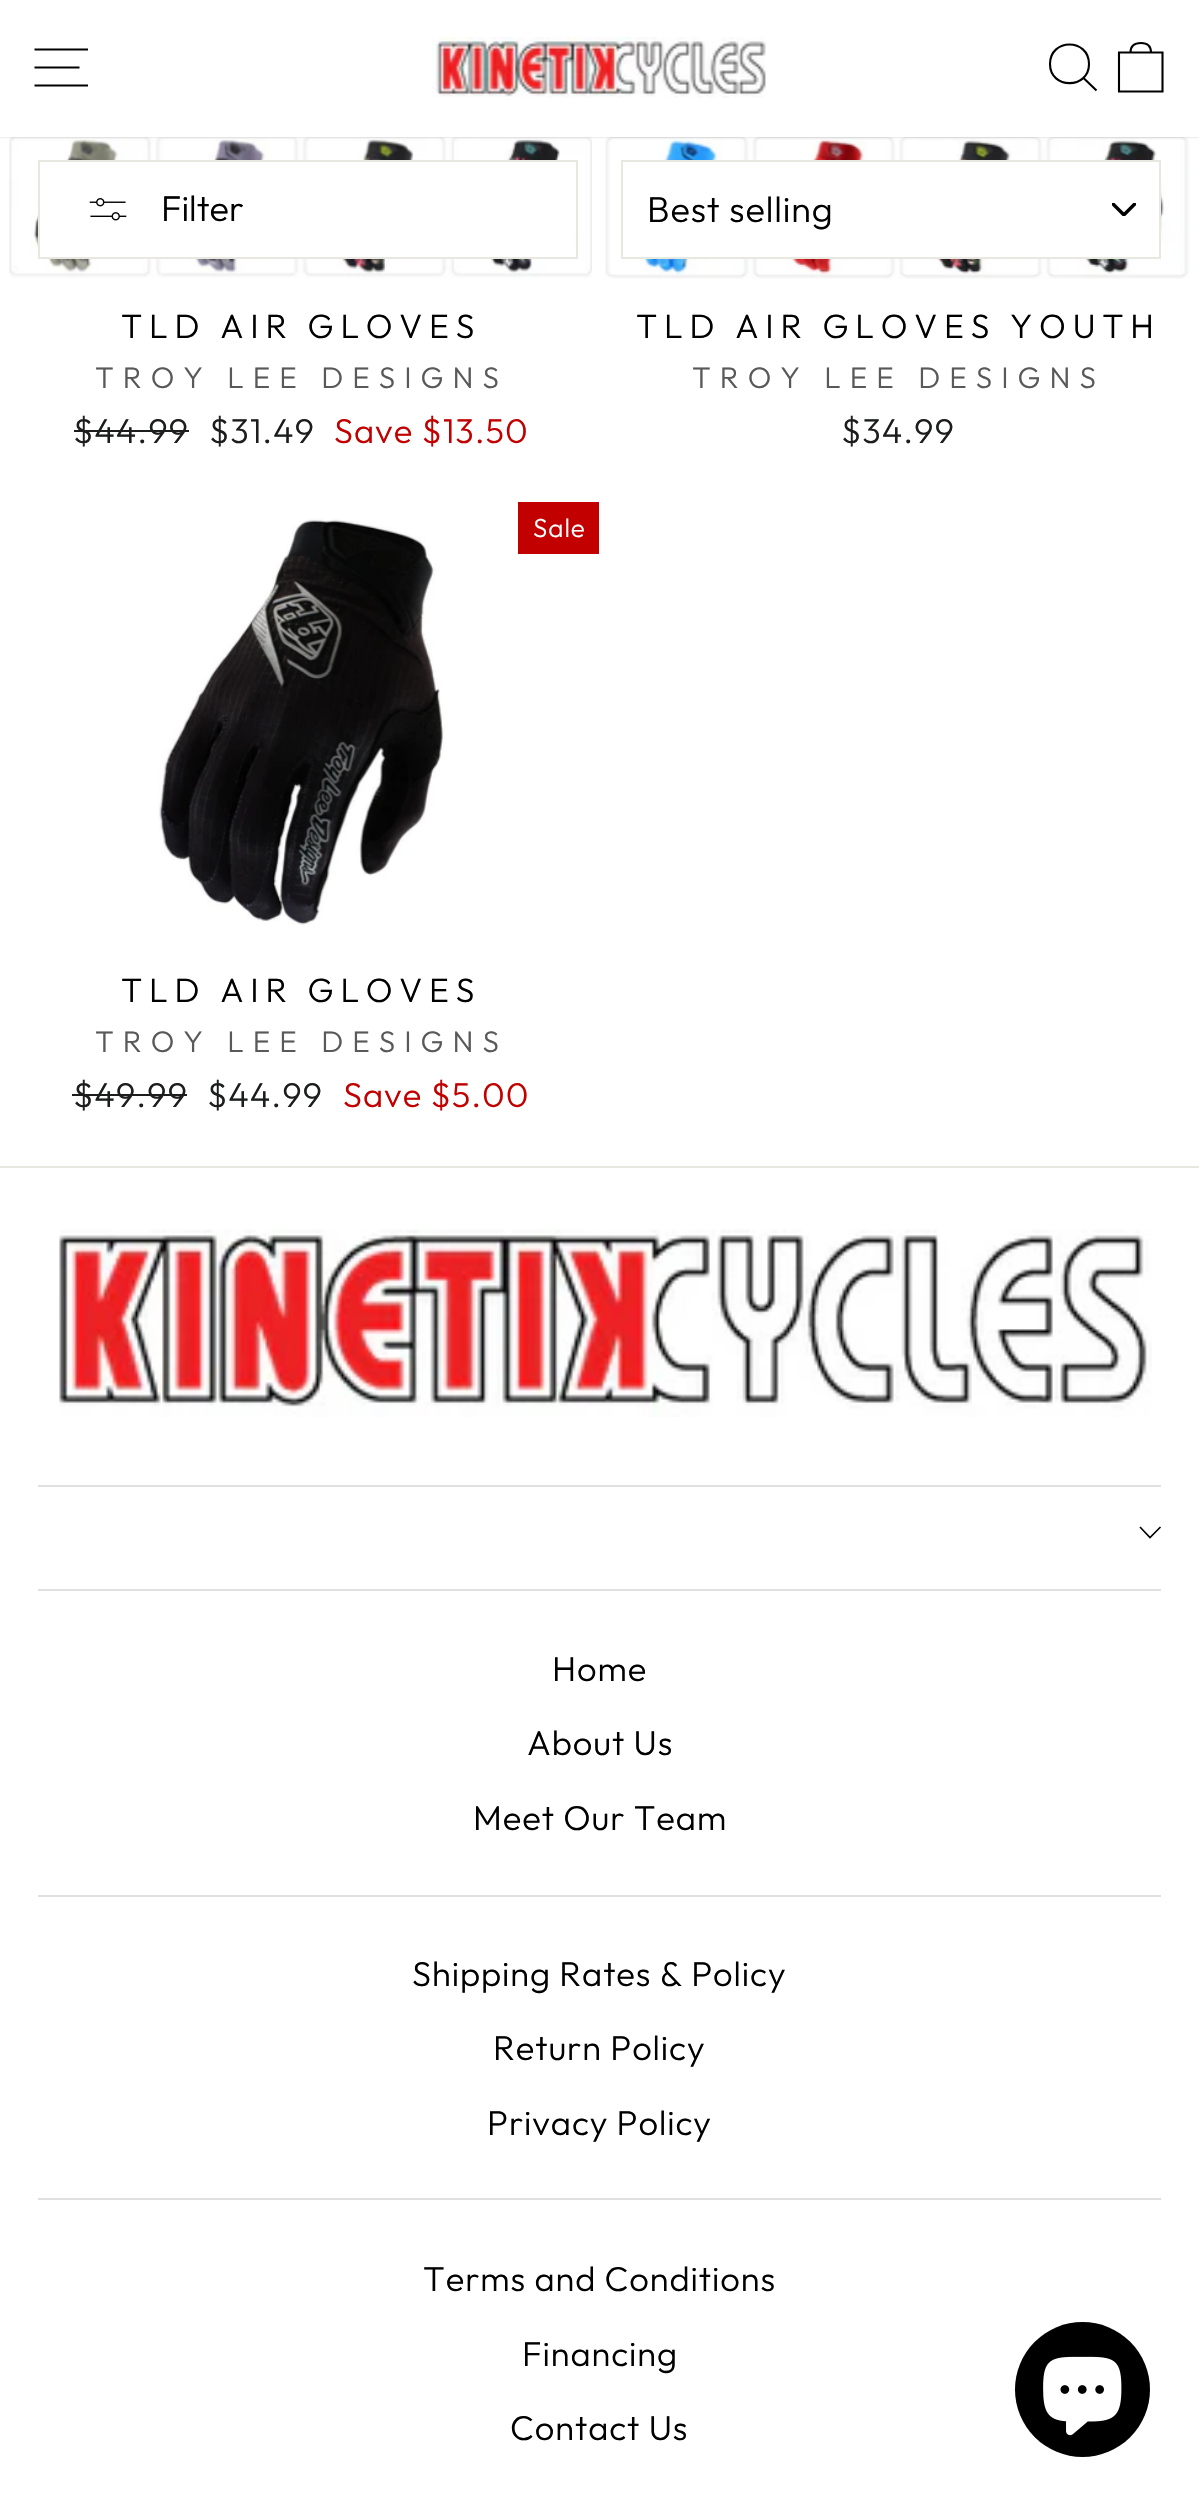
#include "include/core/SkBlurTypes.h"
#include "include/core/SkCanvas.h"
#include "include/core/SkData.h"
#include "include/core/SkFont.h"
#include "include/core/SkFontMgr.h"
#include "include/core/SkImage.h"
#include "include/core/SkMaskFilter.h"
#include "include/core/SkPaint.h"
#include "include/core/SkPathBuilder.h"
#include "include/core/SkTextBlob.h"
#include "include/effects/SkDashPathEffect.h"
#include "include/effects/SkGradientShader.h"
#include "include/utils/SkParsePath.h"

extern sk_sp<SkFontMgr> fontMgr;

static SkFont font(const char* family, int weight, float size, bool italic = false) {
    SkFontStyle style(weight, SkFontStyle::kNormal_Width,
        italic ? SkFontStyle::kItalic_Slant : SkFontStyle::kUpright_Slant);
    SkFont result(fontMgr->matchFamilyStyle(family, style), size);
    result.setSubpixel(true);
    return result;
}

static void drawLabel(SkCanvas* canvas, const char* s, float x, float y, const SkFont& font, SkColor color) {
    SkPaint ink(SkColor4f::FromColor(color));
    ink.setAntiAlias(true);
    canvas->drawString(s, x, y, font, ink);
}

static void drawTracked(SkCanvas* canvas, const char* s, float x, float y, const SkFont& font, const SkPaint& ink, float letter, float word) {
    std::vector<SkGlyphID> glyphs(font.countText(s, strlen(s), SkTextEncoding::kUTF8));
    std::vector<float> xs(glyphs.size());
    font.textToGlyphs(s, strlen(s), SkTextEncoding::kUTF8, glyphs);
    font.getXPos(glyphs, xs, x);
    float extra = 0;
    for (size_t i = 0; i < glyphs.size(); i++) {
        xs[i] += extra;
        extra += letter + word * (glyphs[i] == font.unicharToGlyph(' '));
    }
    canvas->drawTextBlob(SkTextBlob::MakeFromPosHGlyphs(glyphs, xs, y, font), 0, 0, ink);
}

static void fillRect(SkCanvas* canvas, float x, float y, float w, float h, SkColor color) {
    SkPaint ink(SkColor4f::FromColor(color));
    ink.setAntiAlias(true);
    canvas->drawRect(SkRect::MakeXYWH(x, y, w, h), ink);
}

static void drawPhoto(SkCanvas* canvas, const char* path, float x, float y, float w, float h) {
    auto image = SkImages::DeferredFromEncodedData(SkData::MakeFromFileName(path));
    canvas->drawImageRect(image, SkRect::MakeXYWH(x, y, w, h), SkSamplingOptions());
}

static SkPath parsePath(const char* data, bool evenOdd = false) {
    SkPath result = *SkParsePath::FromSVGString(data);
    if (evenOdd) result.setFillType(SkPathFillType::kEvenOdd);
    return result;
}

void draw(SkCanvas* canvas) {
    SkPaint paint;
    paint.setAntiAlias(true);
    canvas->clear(0xFFFFFFFF);
    drawPhoto(canvas, "assets/img4.png", 9, 137, 583, 141);
    drawPhoto(canvas, "assets/img5.png", 605, 137, 585, 142);
    paint.setColor(0x33000000);
    paint.setMaskFilter(SkMaskFilter::MakeBlur(kNormal_SkBlurStyle, 1));
    canvas->drawRect(SkRect::MakeXYWH(0, 0, 1199, 137), paint);
    paint.setMaskFilter(nullptr);
    fillRect(canvas, 0, 0, 1199, 137, 0xFFFFFFFF);
    paint.setStroke(true);
    paint.setStrokeWidth(2.1f);
    paint.setColor(0xFF000000);
    canvas->drawPath(parsePath("M34.5 49.5H88M34.5 67.5H79.5M34.5 85.5H88"), paint);
    drawPhoto(canvas, "assets/img1.png", 432, 37, 334, 61);
    canvas->drawPath(parsePath("M1089 64C1089 89.5 1050 89.5 1050 64C1050 38 1089 38 1089 64ZM1096.5 90.5L1083.5 78"), paint);
    canvas->drawPath(parsePath("M1119 52.5H1162.5V91.5H1119ZM1130.5 52.5C1130.5 45 1135 43 1141 43C1146.5 43 1151 45 1151 52.5"), paint);
    fillRect(canvas, 40, 162, 533, 95, 0xFFFFFFFF);
    paint.setStrokeWidth(2);
    paint.setColor(0xFFE8E8E1);
    canvas->drawRect(SkRect::MakeXYWH(39, 161, 538, 97), paint);
    drawPhoto(canvas, "assets/img2.png", 89, 198, 38, 23);
    SkFont font1 = font("Outfit", 300, 36);
    drawLabel(canvas, "Filter", 161, 221, font1, 0xFF000000);
    fillRect(canvas, 628, 162, 531, 95, 0xFFFFFFFF);
    drawPhoto(canvas, "assets/img3.png", 1112, 203, 24, 13);
    canvas->drawRect(SkRect::MakeXYWH(622, 161, 538, 97), paint);
    paint.setStroke(false);
    paint.setColor(0xFF000000);
    drawTracked(canvas, "Best selling", 647, 222, font1, paint, 0.9f, 0);
    SkFont font2 = font("Outfit", 300, 33.75f);
    drawTracked(canvas, "TLD AIR GLOVES", 121, 338, font2, paint, 6.75f, 0);
    SkFont font3 = font("Outfit", 300, 29.75f);
    paint.setColor(0xFF595959);
    drawTracked(canvas, "TROY LEE DESIGNS", 95, 388, font3, paint, 9, 0);
    SkFont font4 = font("Outfit", 300, 34.5f);
    paint.setColor(0xFF1C1D1D);
    drawTracked(canvas, "$44.99", 73, 443, font4, paint, 0.9f, 0);
    fillRect(canvas, 74, 430, 115, 2, 0xFF1C1D1D);
    drawTracked(canvas, "$31.49", 209, 443, font4, paint, 0.9f, 0);
    paint.setColor(0xFFC20000);
    drawTracked(canvas, "Save $13.50", 334, 443, font4, paint, 0.9f, 0);
    paint.setColor(0xFF000000);
    drawTracked(canvas, "TLD AIR GLOVES YOUTH", 636, 338, font2, paint, 6.75f, 0);
    paint.setColor(0xFF595959);
    drawTracked(canvas, "TROY LEE DESIGNS", 692, 388, font3, paint, 9, 0);
    paint.setColor(0xFF1C1D1D);
    drawTracked(canvas, "$34.99", 841, 443, font4, paint, 0.9f, 0);
    fillRect(canvas, 518, 502, 81, 52, 0xFFC20000);
    SkFont font5 = font("Outfit", 300, 26);
    paint.setColor(0xFFFFFFFF);
    drawTracked(canvas, "Sale", 533, 537, font5, paint, 0.9f, 0);
    drawPhoto(canvas, "assets/img6.png", 158, 518, 287, 407);
    paint.setColor(0xFF000000);
    drawTracked(canvas, "TLD AIR GLOVES", 121, 1002, font2, paint, 6.75f, 0);
    paint.setColor(0xFF595959);
    drawTracked(canvas, "TROY LEE DESIGNS", 95, 1052, font3, paint, 9, 0);
    paint.setColor(0xFF1C1D1D);
    drawTracked(canvas, "$49.99", 73, 1107, font4, paint, 0.9f, 0);
    fillRect(canvas, 72, 1094, 115, 2, 0xFF1C1D1D);
    drawTracked(canvas, "$44.99", 207, 1107, font4, paint, 0.9f, 0);
    paint.setColor(0xFFC20000);
    drawTracked(canvas, "Save $5.00", 343, 1107, font4, paint, 0.9f, 0);
    fillRect(canvas, 0, 1166, 1199, 2, 0xFFE8E8E1);
    drawPhoto(canvas, "assets/img7.png", 59, 1229, 1093, 188);
    fillRect(canvas, 38, 1485, 1123, 2, 0xFFE0E0E0);
    paint.setStroke(true);
    paint.setStrokeWidth(1.6f);
    paint.setColor(0xFF000000);
    canvas->drawPath(parsePath("M1140 1527L1150 1537.5L1160.5 1527"), paint);
    fillRect(canvas, 38, 1589, 1123, 2, 0xFFE0E0E0);
    paint.setStroke(false);
    drawTracked(canvas, "Home", 552, 1681, font4, paint, 0.9f, 0);
    drawTracked(canvas, "About Us", 527, 1755, font4, paint, 0.9f, 0);
    drawTracked(canvas, "Meet Our Team", 473, 1830, font4, paint, 0.9f, 0);
    fillRect(canvas, 38, 1895, 1123, 2, 0xFFE0E0E0);
    drawTracked(canvas, "Shipping Rates & Policy", 412, 1986, font4, paint, 0.9f, 0);
    drawTracked(canvas, "Return Policy", 493, 2060, font4, paint, 0.9f, 0);
    drawTracked(canvas, "Privacy Policy", 487, 2135, font4, paint, 0.9f, 0);
    fillRect(canvas, 38, 2198, 1123, 2, 0xFFE0E0E0);
    drawTracked(canvas, "Terms and Conditions", 423, 2291, font4, paint, 0.9f, 0);
    drawTracked(canvas, "Financing", 522, 2366, font4, paint, 0.9f, 0);
    drawTracked(canvas, "Contact Us", 510, 2440, font4, paint, 0.9f, 0);
    canvas->drawCircle(1082.5f, 2389.5f, 67.5f, paint);
    drawPhoto(canvas, "assets/img8.png", 1043, 2356, 79, 80);
}
